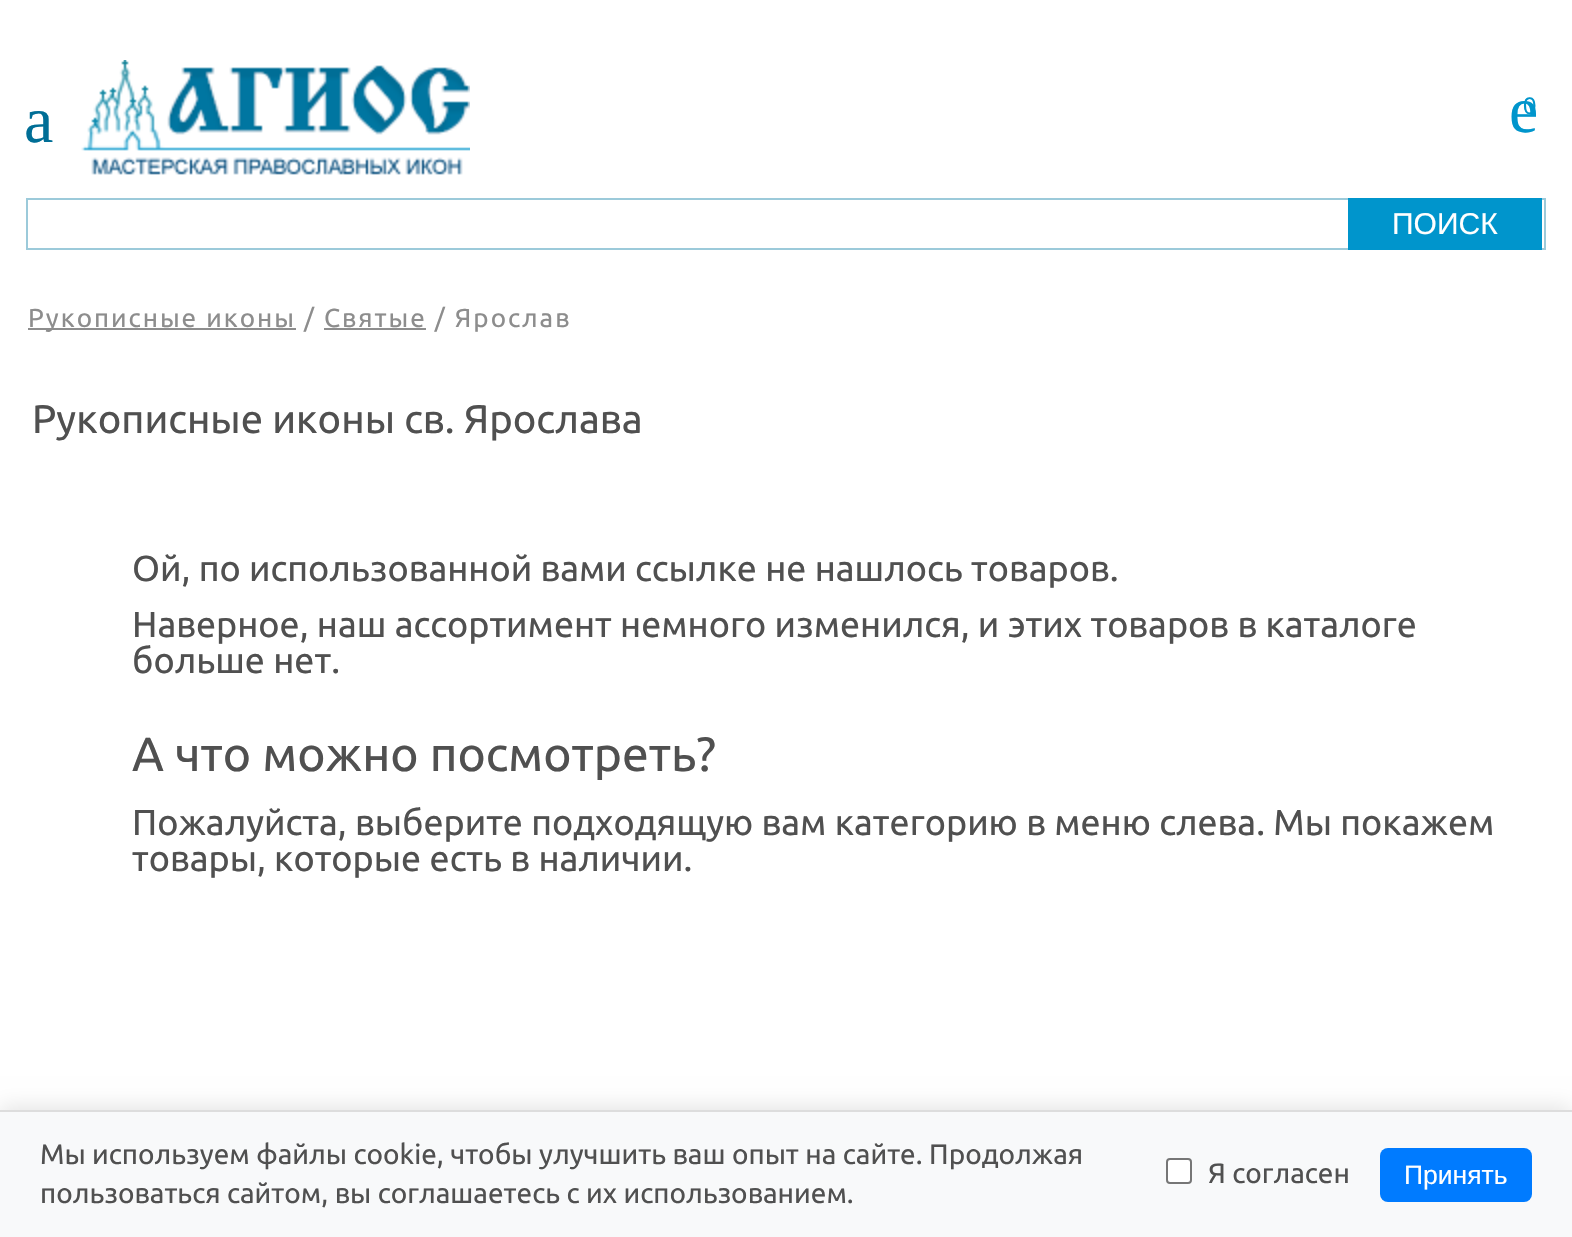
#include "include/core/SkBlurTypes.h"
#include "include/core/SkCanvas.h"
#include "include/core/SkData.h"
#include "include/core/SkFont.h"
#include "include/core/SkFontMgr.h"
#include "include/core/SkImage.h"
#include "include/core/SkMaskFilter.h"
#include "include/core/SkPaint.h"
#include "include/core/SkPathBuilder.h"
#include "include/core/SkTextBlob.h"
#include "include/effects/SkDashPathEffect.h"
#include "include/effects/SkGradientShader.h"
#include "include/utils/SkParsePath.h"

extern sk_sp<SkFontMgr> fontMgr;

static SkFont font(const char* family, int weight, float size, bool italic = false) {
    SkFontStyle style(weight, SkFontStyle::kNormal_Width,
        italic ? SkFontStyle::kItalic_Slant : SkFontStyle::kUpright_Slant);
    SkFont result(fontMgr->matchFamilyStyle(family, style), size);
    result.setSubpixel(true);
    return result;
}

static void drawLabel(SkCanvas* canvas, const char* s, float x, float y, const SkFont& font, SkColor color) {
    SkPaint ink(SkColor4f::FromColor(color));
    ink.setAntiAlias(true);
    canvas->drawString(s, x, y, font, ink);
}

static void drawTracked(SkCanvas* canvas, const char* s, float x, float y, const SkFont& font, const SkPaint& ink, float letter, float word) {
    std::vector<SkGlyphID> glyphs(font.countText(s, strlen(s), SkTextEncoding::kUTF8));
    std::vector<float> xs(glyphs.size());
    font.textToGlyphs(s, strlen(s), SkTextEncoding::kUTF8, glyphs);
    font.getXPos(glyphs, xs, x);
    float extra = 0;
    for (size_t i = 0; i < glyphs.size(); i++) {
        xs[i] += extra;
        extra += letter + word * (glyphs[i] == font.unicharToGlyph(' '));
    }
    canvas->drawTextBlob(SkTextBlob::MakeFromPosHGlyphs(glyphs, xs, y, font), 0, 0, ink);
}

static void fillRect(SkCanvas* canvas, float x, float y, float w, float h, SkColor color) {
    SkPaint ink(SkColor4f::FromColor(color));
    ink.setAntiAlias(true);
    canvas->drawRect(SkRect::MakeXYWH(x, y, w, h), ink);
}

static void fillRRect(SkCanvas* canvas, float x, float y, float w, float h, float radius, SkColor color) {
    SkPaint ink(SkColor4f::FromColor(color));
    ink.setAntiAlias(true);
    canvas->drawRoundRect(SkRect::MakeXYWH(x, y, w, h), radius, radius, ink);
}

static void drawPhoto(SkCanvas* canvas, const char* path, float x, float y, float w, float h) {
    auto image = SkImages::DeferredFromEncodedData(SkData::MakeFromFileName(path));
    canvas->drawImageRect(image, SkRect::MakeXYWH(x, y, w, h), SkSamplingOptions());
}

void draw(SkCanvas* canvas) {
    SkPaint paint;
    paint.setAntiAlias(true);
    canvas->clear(0xFFFFFFFF);
    SkFont font1 = font("Liberation Serif", 400, 66);
    drawLabel(canvas, "a", 24, 142, font1, 0xFF006E96);
    drawPhoto(canvas, "assets/img1.png", 81, 60, 389, 115);
    drawLabel(canvas, "e", 1509, 132, font1, 0xFF0095CC);
    SkFont font2 = font("Liberation Sans", 400, 24);
    drawLabel(canvas, "0", 1523, 114, font2, 0xFF0095CC);
    paint.setStroke(true);
    paint.setStrokeWidth(2);
    paint.setColor(0xFF9CCADA);
    canvas->drawRect(SkRect::MakeXYWH(27, 199, 1518, 50), paint);
    fillRect(canvas, 1348, 198, 194, 52, 0xFF0095CC);
    SkFont font3 = font("Liberation Sans", 400, 30);
    drawLabel(canvas, "ПОИСК", 1392, 234, font3, 0xFFFFFFFF);
    fillRect(canvas, 28, 328, 268, 2, 0xFF8D8D8D);
    SkFont font4 = font("Ubuntu", 400, 26);
    paint.setStroke(false);
    paint.setColor(0xFF8D8D8D);
    drawTracked(canvas, "Рукописные иконы / Святые / Ярослав", 28, 327, font4, paint, 2, 0);
    fillRect(canvas, 324, 328, 102, 2, 0xFF8D8D8D);
    SkFont font5 = font("Ubuntu", 400, 40);
    drawLabel(canvas, "Рукописные иконы св. Ярослава", 32, 433, font5, 0xFF505050);
    SkFont font6 = font("Ubuntu", 400, 36);
    drawLabel(canvas, "Ой, по использованной вами ссылке не нашлось товаров.", 132, 581, font6, 0xFF505050);
    drawLabel(canvas, "Наверное, наш ассортимент немного изменился, и этих товаров в каталоге", 132, 637, font6, 0xFF505050);
    drawLabel(canvas, "больше нет.", 132, 673, font6, 0xFF505050);
    SkFont font7 = font("Ubuntu", 400, 48);
    drawLabel(canvas, "А что можно посмотреть?", 132, 771, font7, 0xFF505050);
    drawLabel(canvas, "Пожалуйста, выберите подходящую вам категорию в меню слева. Мы покажем", 132, 835, font6, 0xFF505050);
    drawLabel(canvas, "товары, которые есть в наличии.", 132, 871, font6, 0xFF505050);
    paint.setColor(0x1A000000);
    paint.setMaskFilter(SkMaskFilter::MakeBlur(kNormal_SkBlurStyle, 10));
    canvas->drawRect(SkRect::MakeXYWH(0, 1106, 1572, 128), paint);
    paint.setMaskFilter(nullptr);
    fillRect(canvas, 0, 1112, 1572, 125, 0xFFF8F9FA);
    fillRect(canvas, 0, 1110, 1572, 2, 0xFFDDDDDD);
    SkFont font8 = font("Ubuntu", 400, 28);
    drawLabel(canvas, "Мы используем файлы cookie, чтобы улучшить ваш опыт на сайте. Продолжая", 40, 1164, font8, 0xFF505050);
    drawLabel(canvas, "пользоваться сайтом, вы соглашаетесь с их использованием.", 40, 1203, font8, 0xFF505050);
    paint.setColor(0xFFFFFFFF);
    canvas->drawRoundRect(SkRect::MakeXYWH(1167, 1159, 24, 24), 3, 3, paint);
    paint.setStroke(true);
    paint.setColor(0xFF767676);
    canvas->drawRoundRect(SkRect::MakeXYWH(1167, 1159, 24, 24), 3, 3, paint);
    drawLabel(canvas, "Я согласен", 1208, 1183, font8, 0xFF505050);
    fillRRect(canvas, 1380, 1148, 152, 54, 8, 0xFF007BFF);
    SkFont font9 = font("Liberation Sans", 400, 26.5f);
    drawLabel(canvas, "Принять", 1404, 1184, font9, 0xFFFFFFFF);
}
